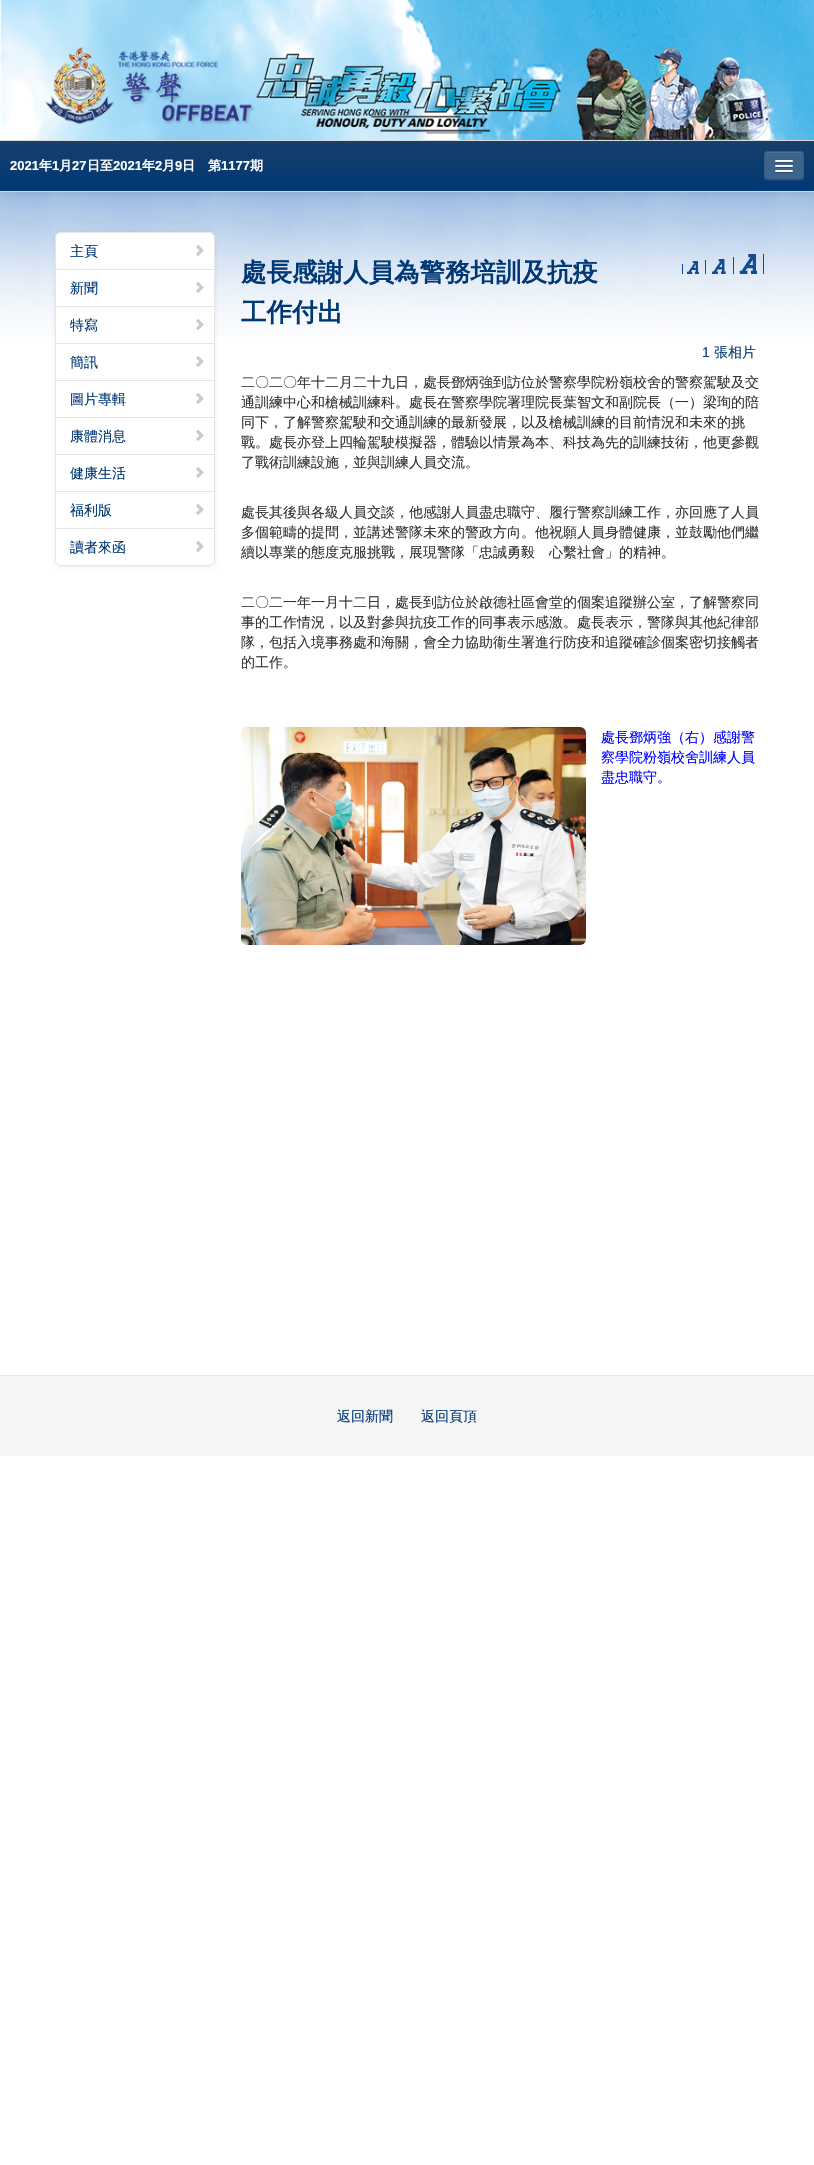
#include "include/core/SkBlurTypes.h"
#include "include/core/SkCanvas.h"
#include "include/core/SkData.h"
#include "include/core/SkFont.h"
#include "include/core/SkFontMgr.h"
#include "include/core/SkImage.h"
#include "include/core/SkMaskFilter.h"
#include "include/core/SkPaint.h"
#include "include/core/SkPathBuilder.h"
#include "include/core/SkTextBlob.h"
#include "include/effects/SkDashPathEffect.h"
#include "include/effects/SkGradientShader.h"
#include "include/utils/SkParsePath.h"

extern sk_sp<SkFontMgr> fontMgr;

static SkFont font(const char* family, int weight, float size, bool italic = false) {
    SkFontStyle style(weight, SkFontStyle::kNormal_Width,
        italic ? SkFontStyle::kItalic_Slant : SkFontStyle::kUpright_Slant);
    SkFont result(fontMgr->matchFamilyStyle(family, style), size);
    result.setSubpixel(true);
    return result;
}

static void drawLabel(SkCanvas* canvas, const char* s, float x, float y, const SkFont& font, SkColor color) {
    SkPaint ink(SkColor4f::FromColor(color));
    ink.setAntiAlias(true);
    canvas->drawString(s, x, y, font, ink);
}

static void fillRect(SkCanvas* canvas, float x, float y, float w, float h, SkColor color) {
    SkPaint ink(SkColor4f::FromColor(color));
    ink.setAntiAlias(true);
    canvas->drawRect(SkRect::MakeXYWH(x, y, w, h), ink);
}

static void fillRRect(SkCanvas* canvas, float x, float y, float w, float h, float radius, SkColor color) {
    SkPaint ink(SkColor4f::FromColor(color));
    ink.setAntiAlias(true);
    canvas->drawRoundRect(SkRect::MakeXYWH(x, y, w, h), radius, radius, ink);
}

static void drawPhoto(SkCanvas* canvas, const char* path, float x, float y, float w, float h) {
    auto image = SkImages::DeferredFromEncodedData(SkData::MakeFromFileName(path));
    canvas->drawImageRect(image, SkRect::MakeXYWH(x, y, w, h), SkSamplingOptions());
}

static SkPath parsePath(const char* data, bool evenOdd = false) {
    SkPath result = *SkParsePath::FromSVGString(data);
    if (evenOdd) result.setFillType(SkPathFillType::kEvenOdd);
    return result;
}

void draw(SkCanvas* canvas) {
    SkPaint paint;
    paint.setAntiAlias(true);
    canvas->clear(0xFFFFFFFF);
    drawPhoto(canvas, "assets/img1.png", 0, 192, 814, 145);
    paint.setColor(0x1A000000);
    paint.setMaskFilter(SkMaskFilter::MakeBlur(kNormal_SkBlurStyle, 5));
    canvas->drawRect(SkRect::MakeXYWH(0, 142, 814, 51), paint);
    paint.setMaskFilter(nullptr);
    fillRect(canvas, 0, 140, 814, 1, 0xFFDDDDDD);
    drawPhoto(canvas, "assets/img2.png", 0, 0, 814, 140);
    drawPhoto(canvas, "assets/img3.png", 45, 46, 724, 94);
    {
        const SkColor colors[] = {0xFF16406B, 0xFF003775};
        const float stops[] = {0, 1};
        const SkPoint ends[] = {{407, 141}, {407, 191}};
        paint.setShader(SkGradientShader::MakeLinear(ends, colors, stops, 2, SkTileMode::kClamp));
        paint.setAlpha(255);
    }
    canvas->drawRect(SkRect::MakeXYWH(0, 141, 814, 50), paint);
    fillRect(canvas, 0, 191, 814, 1, 0xFFD4D4D4);
    SkFont font1 = font("Liberation Sans", 700, 13);
    drawLabel(canvas, "2021", 10, 170, font1, 0xFFFFFFFF);
    SkFont font2 = font("WenQuanYi Zen Hei", 700, 13);
    drawLabel(canvas, "年", 39, 170, font2, 0xFFFFFFFF);
    drawLabel(canvas, "1", 52, 170, font1, 0xFFFFFFFF);
    drawLabel(canvas, "月", 59, 170, font2, 0xFFFFFFFF);
    drawLabel(canvas, "27", 72, 170, font1, 0xFFFFFFFF);
    drawLabel(canvas, "日至", 87, 170, font2, 0xFFFFFFFF);
    drawLabel(canvas, "2021", 113, 170, font1, 0xFFFFFFFF);
    drawLabel(canvas, "年", 142, 170, font2, 0xFFFFFFFF);
    drawLabel(canvas, "2", 155, 170, font1, 0xFFFFFFFF);
    drawLabel(canvas, "月", 162, 170, font2, 0xFFFFFFFF);
    drawLabel(canvas, "9", 175, 170, font1, 0xFFFFFFFF);
    drawLabel(canvas, "日　第", 182, 170, font2, 0xFFFFFFFF);
    drawLabel(canvas, "1177", 221, 170, font1, 0xFFFFFFFF);
    drawLabel(canvas, "期", 250, 170, font2, 0xFFFFFFFF);
    paint.setShader(nullptr);
    paint.setColor(0xFF18487E);
    canvas->drawPath(parsePath("M764 176C764 182 769 181 773 181H795C799 181 804 182 804 176C804 178 802 180 800 180H768C766 180 764 178 764 176Z"), paint);
    fillRRect(canvas, 764, 151, 40, 29, 4, 0xFF3D648A);
    canvas->save();
    canvas->clipPath(parsePath("M768 151H800C802 151 804 153 804 155V176C804 178 802 180 800 180H768C766 180 764 178 764 176V155C764 153 766 151 768 151Z"), true);
    fillRect(canvas, 764, 152, 40, 27, 0xFF3D648A);
    canvas->restore();
    paint.setColor(0xFF507496);
    canvas->drawPath(parsePath("M768 153H800C802 153 803 154 803 156C803 151 799 152 794.5 152H773.5C769 152 765 151 765 156C765 154 766 153 768 153Z"), paint);
    paint.setStroke(true);
    paint.setStrokeWidth(1);
    paint.setColor(0x40000000);
    canvas->drawPath(parsePath("M802.5 178.5C802 179 801 179.5 800 179.5H768C767 179.5 766 179 765.5 178.5"), paint);
    paint.setColor(0x1A000000);
    canvas->drawPath(parsePath("M765.5 178.5C765 178 764.5 177 764.5 176V155C764.5 154 765 153 765.5 152.5C766 152 767 151.5 768 151.5H800C801 151.5 802 152 802.5 152.5C803 153 803.5 154 803.5 155V176C803.5 177 803 178 802.5 178.5"), paint);
    paint.setStroke(false);
    paint.setColor(0xFF2E4B68);
    canvas->drawPath(parsePath("M775 161.5C774 163.5 778.5 163 778.5 163H789.5C789.5 163 794 163.5 793 161.5C792 162.5 785.5 162 784 162C782.5 162 776 162.5 775 161.5Z"), paint);
    fillRRect(canvas, 775, 160, 18, 2, 1, 0xFFF5F5F5);
    canvas->drawPath(parsePath("M775 166.5C774 168.5 778.5 168 778.5 168H789.5C789.5 168 794 168.5 793 166.5C792 167.5 785.5 167 784 167C782.5 167 776 167.5 775 166.5Z"), paint);
    fillRRect(canvas, 775, 165, 18, 2, 1, 0xFFF5F5F5);
    canvas->drawPath(parsePath("M775 171.5C774 173.5 778.5 173 778.5 173H789.5C789.5 173 794 173.5 793 171.5C792 172.5 785.5 172 784 172C782.5 172 776 172.5 775 171.5Z"), paint);
    fillRRect(canvas, 775, 170, 18, 2, 1, 0xFFF5F5F5);
    paint.setColor(0x12000000);
    paint.setMaskFilter(SkMaskFilter::MakeBlur(kNormal_SkBlurStyle, 2));
    canvas->drawRoundRect(SkRect::MakeXYWH(55, 233, 160, 334), 6, 6, paint);
    paint.setMaskFilter(nullptr);
    fillRRect(canvas, 55, 232, 160, 334, 6, 0xFFFFFFFF);
    paint.setStroke(true);
    paint.setColor(0xFFE5E5E5);
    canvas->drawPath(parsePath("M61 232.5H209C212 232.5 214.5 235 214.5 238V269.5H55.5V238C55.5 235 58 232.5 61 232.5Z"), paint);
    SkFont font3 = font("WenQuanYi Zen Hei", 500, 14);
    drawLabel(canvas, "主頁", 70, 256, font3, 0xFF003775);
    drawPhoto(canvas, "assets/img4.png", 196, 245, 8, 11);
    canvas->drawRect(SkRect::MakeXYWH(55.5f, 269.5f, 159, 37), paint);
    drawLabel(canvas, "新聞", 70, 293, font3, 0xFF003775);
    drawPhoto(canvas, "assets/img4.png", 196, 282, 8, 11);
    canvas->drawRect(SkRect::MakeXYWH(55.5f, 306.5f, 159, 37), paint);
    drawLabel(canvas, "特寫", 70, 330, font3, 0xFF003775);
    drawPhoto(canvas, "assets/img4.png", 196, 319, 8, 11);
    canvas->drawRect(SkRect::MakeXYWH(55.5f, 343.5f, 159, 37), paint);
    drawLabel(canvas, "簡訊", 70, 367, font3, 0xFF003775);
    drawPhoto(canvas, "assets/img4.png", 196, 356, 8, 11);
    canvas->drawRect(SkRect::MakeXYWH(55.5f, 380.5f, 159, 37), paint);
    drawLabel(canvas, "圖片專輯", 70, 404, font3, 0xFF003775);
    drawPhoto(canvas, "assets/img4.png", 196, 393, 8, 11);
    canvas->drawRect(SkRect::MakeXYWH(55.5f, 417.5f, 159, 37), paint);
    drawLabel(canvas, "康體消息", 70, 441, font3, 0xFF003775);
    drawPhoto(canvas, "assets/img4.png", 196, 430, 8, 11);
    canvas->drawRect(SkRect::MakeXYWH(55.5f, 454.5f, 159, 37), paint);
    drawLabel(canvas, "健康生活", 70, 478, font3, 0xFF003775);
    drawPhoto(canvas, "assets/img4.png", 196, 467, 8, 11);
    canvas->drawRect(SkRect::MakeXYWH(55.5f, 491.5f, 159, 37), paint);
    drawLabel(canvas, "福利版", 70, 515, font3, 0xFF003775);
    drawPhoto(canvas, "assets/img4.png", 196, 504, 8, 11);
    canvas->drawPath(parsePath("M55.5 528.5H214.5V560C214.5 563 212 565.5 209 565.5H61C58 565.5 55.5 563 55.5 560Z"), paint);
    drawLabel(canvas, "讀者來函", 70, 552, font3, 0xFF003775);
    drawPhoto(canvas, "assets/img4.png", 196, 541, 8, 11);
    SkFont font4 = font("WenQuanYi Zen Hei", 700, 25.5f);
    drawLabel(canvas, "處長感謝人員為警務培訓及抗疫", 241, 281, font4, 0xFF003775);
    drawLabel(canvas, "工作付出", 241, 321, font4, 0xFF003775);
    drawPhoto(canvas, "assets/img5.png", 682, 260, 24, 14);
    drawPhoto(canvas, "assets/img6.png", 712, 257, 22, 17);
    drawPhoto(canvas, "assets/img7.png", 739, 254, 25, 20);
    SkFont font5 = font("Liberation Sans", 400, 14);
    drawLabel(canvas, "1", 702, 357, font5, 0xFF073A71);
    drawLabel(canvas, "張相片", 714, 357, font3, 0xFF073A71);
    drawLabel(canvas, "二〇二〇年十二月二十九日，處長鄧炳強到訪位於警察學院粉嶺校舍的警察駕駛及交", 241, 387, font3, 0xFF333333);
    drawLabel(canvas, "通訓練中心和槍械訓練科。處長在警察學院署理院長葉智文和副院長（一）梁珣的陪", 241, 407, font3, 0xFF333333);
    drawLabel(canvas, "同下，了解警察駕駛和交通訓練的最新發展，以及槍械訓練的目前情況和未來的挑", 241, 427, font3, 0xFF333333);
    drawLabel(canvas, "戰。處長亦登上四輪駕駛模擬器，體驗以情景為本、科技為先的訓練技術，他更參觀", 241, 447, font3, 0xFF333333);
    drawLabel(canvas, "了戰術訓練設施，並與訓練人員交流。", 241, 467, font3, 0xFF333333);
    drawLabel(canvas, "處長其後與各級人員交談，他感謝人員盡忠職守、履行警察訓練工作，亦回應了人員", 241, 517, font3, 0xFF333333);
    drawLabel(canvas, "多個範疇的提問，並講述警隊未來的警政方向。他祝願人員身體健康，並鼓勵他們繼", 241, 537, font3, 0xFF333333);
    drawLabel(canvas, "續以專業的態度克服挑戰，展現警隊「忠誠勇毅　心繫社會」的精神。", 241, 557, font3, 0xFF333333);
    drawLabel(canvas, "二〇二一年一月十二日，處長到訪位於啟德社區會堂的個案追蹤辦公室，了解警察同", 241, 607, font3, 0xFF333333);
    drawLabel(canvas, "事的工作情況，以及對參與抗疫工作的同事表示感激。處長表示，警隊與其他紀律部", 241, 627, font3, 0xFF333333);
    drawLabel(canvas, "隊，包括入境事務處和海關，會全力協助衞生署進行防疫和追蹤確診個案密切接觸者", 241, 647, font3, 0xFF333333);
    drawLabel(canvas, "的工作。", 241, 667, font3, 0xFF333333);
    drawPhoto(canvas, "assets/img8.png", 241, 727, 345, 218);
    drawLabel(canvas, "處長鄧炳強（右）感謝警", 601, 742, font3, 0xFF0000FF);
    drawLabel(canvas, "察學院粉嶺校舍訓練人員", 601, 762, font3, 0xFF0000FF);
    drawLabel(canvas, "盡忠職守。", 601, 782, font3, 0xFF0000FF);
    fillRect(canvas, 0, 1376, 814, 80, 0xFFF5F5F5);
    fillRect(canvas, 0, 1375, 814, 1, 0xFFE5E5E5);
    drawLabel(canvas, "返回新聞", 337, 1421, font3, 0xFF003775);
    drawLabel(canvas, "返回頁頂", 421, 1421, font3, 0xFF003775);
}
